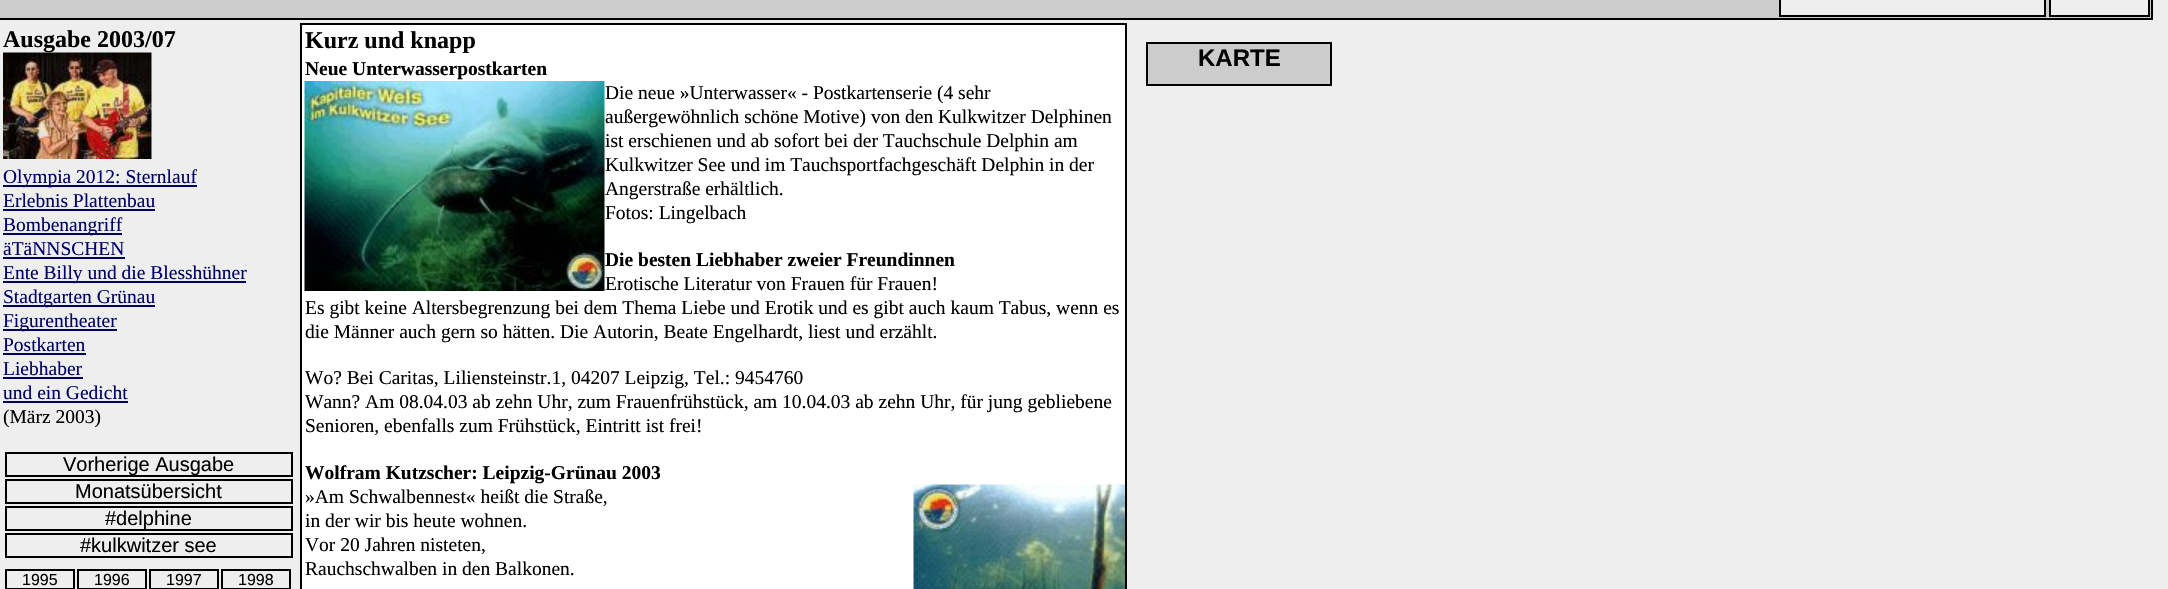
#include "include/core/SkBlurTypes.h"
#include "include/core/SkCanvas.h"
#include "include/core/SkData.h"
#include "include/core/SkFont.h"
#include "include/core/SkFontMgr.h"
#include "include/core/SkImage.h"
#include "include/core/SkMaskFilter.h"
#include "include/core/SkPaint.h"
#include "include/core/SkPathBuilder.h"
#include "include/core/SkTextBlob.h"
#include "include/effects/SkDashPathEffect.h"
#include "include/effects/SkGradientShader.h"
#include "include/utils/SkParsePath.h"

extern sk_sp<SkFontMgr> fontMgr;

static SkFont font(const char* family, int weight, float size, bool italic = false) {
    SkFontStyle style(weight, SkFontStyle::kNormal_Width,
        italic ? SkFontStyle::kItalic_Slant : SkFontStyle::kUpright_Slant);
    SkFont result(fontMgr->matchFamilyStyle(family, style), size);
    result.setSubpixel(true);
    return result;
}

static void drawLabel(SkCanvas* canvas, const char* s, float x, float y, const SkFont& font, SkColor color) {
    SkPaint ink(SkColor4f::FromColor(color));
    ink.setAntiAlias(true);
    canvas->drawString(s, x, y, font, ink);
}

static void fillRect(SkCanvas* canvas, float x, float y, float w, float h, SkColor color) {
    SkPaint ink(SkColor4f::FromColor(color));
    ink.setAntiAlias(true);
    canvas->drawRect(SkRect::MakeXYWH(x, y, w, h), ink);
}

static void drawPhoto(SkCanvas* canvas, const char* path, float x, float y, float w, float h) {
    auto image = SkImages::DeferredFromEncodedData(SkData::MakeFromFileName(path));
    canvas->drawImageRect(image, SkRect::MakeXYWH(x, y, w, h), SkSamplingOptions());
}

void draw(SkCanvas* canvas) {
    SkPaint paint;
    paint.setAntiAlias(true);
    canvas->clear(0xFFEEEEEE);
    fillRect(canvas, 0, 0, 2151, 18, 0xFFCCCCCC);
    fillRect(canvas, 2151, 0, 2, 20, 0xFF000000);
    fillRect(canvas, 0, 18, 2153, 2, 0xFF000000);
    paint.setColor(0xFFEEEEEE);
    canvas->drawRect(SkRect::MakeXYWH(1780, -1, 265, 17), paint);
    paint.setStroke(true);
    paint.setStrokeWidth(2);
    paint.setColor(0xFF000000);
    canvas->drawRect(SkRect::MakeXYWH(1780, -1, 265, 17), paint);
    paint.setStroke(false);
    paint.setColor(0xFFEEEEEE);
    canvas->drawRect(SkRect::MakeXYWH(2050, -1, 99, 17), paint);
    paint.setStroke(true);
    paint.setColor(0xFF000000);
    canvas->drawRect(SkRect::MakeXYWH(2050, -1, 99, 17), paint);
    SkFont font1 = font("Liberation Serif", 700, 24);
    drawLabel(canvas, "Ausgabe 2003/07", 3, 47, font1, 0xFF000000);
    drawPhoto(canvas, "assets/img1.png", 3, 52, 149, 107);
    fillRect(canvas, 3, 185, 194, 2, 0xFF000066);
    SkFont font2 = font("Liberation Serif", 400, 19.5f);
    drawLabel(canvas, "Olympia 2012: Sternlauf", 3, 183, font2, 0xFF000066);
    drawLabel(canvas, "Erlebnis Plattenbau", 3, 207, font2, 0xFF000066);
    fillRect(canvas, 3, 209, 152, 2, 0xFF000066);
    fillRect(canvas, 3, 233, 119, 2, 0xFF000066);
    drawLabel(canvas, "Bombenangriff", 3, 231, font2, 0xFF000066);
    drawLabel(canvas, "äTäNNSCHEN", 3, 255, font2, 0xFF000066);
    fillRect(canvas, 3, 257, 122, 2, 0xFF000066);
    fillRect(canvas, 3, 281, 243, 2, 0xFF000066);
    drawLabel(canvas, "Ente Billy und die Blesshühner", 3, 279, font2, 0xFF000066);
    fillRect(canvas, 3, 305, 152, 2, 0xFF000066);
    drawLabel(canvas, "Stadtgarten Grünau", 3, 303, font2, 0xFF000066);
    fillRect(canvas, 3, 329, 114, 2, 0xFF000066);
    drawLabel(canvas, "Figurentheater", 3, 327, font2, 0xFF000066);
    drawLabel(canvas, "Postkarten", 3, 351, font2, 0xFF000066);
    fillRect(canvas, 3, 353, 83, 2, 0xFF000066);
    drawLabel(canvas, "Liebhaber", 3, 375, font2, 0xFF000066);
    fillRect(canvas, 3, 377, 80, 2, 0xFF000066);
    drawLabel(canvas, "und ein Gedicht", 3, 399, font2, 0xFF000066);
    fillRect(canvas, 3, 401, 125, 2, 0xFF000066);
    drawLabel(canvas, "(März 2003)", 3, 423, font2, 0xFF000000);
    canvas->drawRect(SkRect::MakeXYWH(6, 453, 286, 23), paint);
    SkFont font3 = font("Liberation Sans", 400, 20);
    drawLabel(canvas, "Vorherige Ausgabe", 63, 471, font3, 0xFF000000);
    canvas->drawRect(SkRect::MakeXYWH(6, 480, 286, 23), paint);
    drawLabel(canvas, "Monatsübersicht", 75, 498, font3, 0xFF000000);
    canvas->drawRect(SkRect::MakeXYWH(6, 507, 286, 23), paint);
    drawLabel(canvas, "#delphine", 105, 525, font3, 0xFF000000);
    canvas->drawRect(SkRect::MakeXYWH(6, 534, 286, 23), paint);
    drawLabel(canvas, "#kulkwitzer see", 80, 552, font3, 0xFF000000);
    canvas->drawRect(SkRect::MakeXYWH(6, 570, 68, 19), paint);
    SkFont font4 = font("Liberation Sans", 400, 16);
    drawLabel(canvas, "1995", 22, 585, font4, 0xFF000000);
    canvas->drawRect(SkRect::MakeXYWH(78, 570, 68, 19), paint);
    drawLabel(canvas, "1996", 94, 585, font4, 0xFF000000);
    canvas->drawRect(SkRect::MakeXYWH(150, 570, 68, 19), paint);
    drawLabel(canvas, "1997", 166, 585, font4, 0xFF000000);
    canvas->drawRect(SkRect::MakeXYWH(222, 570, 68, 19), paint);
    drawLabel(canvas, "1998", 238, 585, font4, 0xFF000000);
    paint.setStroke(false);
    paint.setColor(0xFFFFFFFF);
    canvas->drawRect(SkRect::MakeXYWH(301, 24, 825, 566), paint);
    paint.setStroke(true);
    paint.setColor(0xFF000000);
    canvas->drawRect(SkRect::MakeXYWH(301, 24, 825, 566), paint);
    drawLabel(canvas, "Kurz und knapp", 305, 48, font1, 0xFF000000);
    SkFont font5 = font("Liberation Serif", 700, 19.5f);
    drawLabel(canvas, "Neue Unterwasserpostkarten", 305, 75, font5, 0xFF000000);
    drawPhoto(canvas, "assets/img2.png", 304, 81, 301, 210);
    drawLabel(canvas, "Die neue »Unterwasser« - Postkartenserie (4 sehr", 605, 99, font2, 0xFF000000);
    drawLabel(canvas, "außergewöhnlich schöne Motive) von den Kulkwitzer Delphinen", 605, 123, font2, 0xFF000000);
    drawLabel(canvas, "ist erschienen und ab sofort bei der Tauchschule Delphin am", 605, 147, font2, 0xFF000000);
    drawLabel(canvas, "Kulkwitzer See und im Tauchsportfachgeschäft Delphin in der", 605, 171, font2, 0xFF000000);
    drawLabel(canvas, "Angerstraße erhältlich.", 605, 195, font2, 0xFF000000);
    drawLabel(canvas, "Fotos: Lingelbach", 605, 219, font2, 0xFF000000);
    drawLabel(canvas, "Die besten Liebhaber zweier Freundinnen", 605, 266, font5, 0xFF000000);
    drawLabel(canvas, "Erotische Literatur von Frauen für Frauen!", 605, 290, font2, 0xFF000000);
    drawLabel(canvas, "Es gibt keine Altersbegrenzung bei dem Thema Liebe und Erotik und es gibt auch kaum Tabus, wenn es", 305, 314, font2, 0xFF000000);
    drawLabel(canvas, "die Männer auch gern so hätten. Die Autorin, Beate Engelhardt, liest und erzählt.", 305, 338, font2, 0xFF000000);
    drawLabel(canvas, "Wo? Bei Caritas, Liliensteinstr.1, 04207 Leipzig, Tel.: 9454760", 305, 384, font2, 0xFF000000);
    drawLabel(canvas, "Wann? Am 08.04.03 ab zehn Uhr, zum Frauenfrühstück, am 10.04.03 ab zehn Uhr, für jung gebliebene", 305, 408, font2, 0xFF000000);
    drawLabel(canvas, "Senioren, ebenfalls zum Frühstück, Eintritt ist frei!", 305, 432, font2, 0xFF000000);
    drawLabel(canvas, "Wolfram Kutzscher: Leipzig-Grünau 2003", 305, 479, font5, 0xFF000000);
    drawLabel(canvas, "»Am Schwalbennest« heißt die Straße,", 305, 503, font2, 0xFF000000);
    drawPhoto(canvas, "assets/img3.png", 913, 484, 212, 105);
    drawLabel(canvas, "in der wir bis heute wohnen.", 305, 527, font2, 0xFF000000);
    drawLabel(canvas, "Vor 20 Jahren nisteten,", 305, 551, font2, 0xFF000000);
    drawLabel(canvas, "Rauchschwalben in den Balkonen.", 305, 575, font2, 0xFF000000);
    paint.setStroke(false);
    paint.setColor(0xFFCCCCCC);
    canvas->drawRect(SkRect::MakeXYWH(1147, 43, 184, 42), paint);
    paint.setStroke(true);
    paint.setColor(0xFF000000);
    canvas->drawRect(SkRect::MakeXYWH(1147, 43, 184, 42), paint);
    SkFont font6 = font("Liberation Sans", 700, 24);
    drawLabel(canvas, "KARTE", 1198, 66, font6, 0xFF000000);
}
